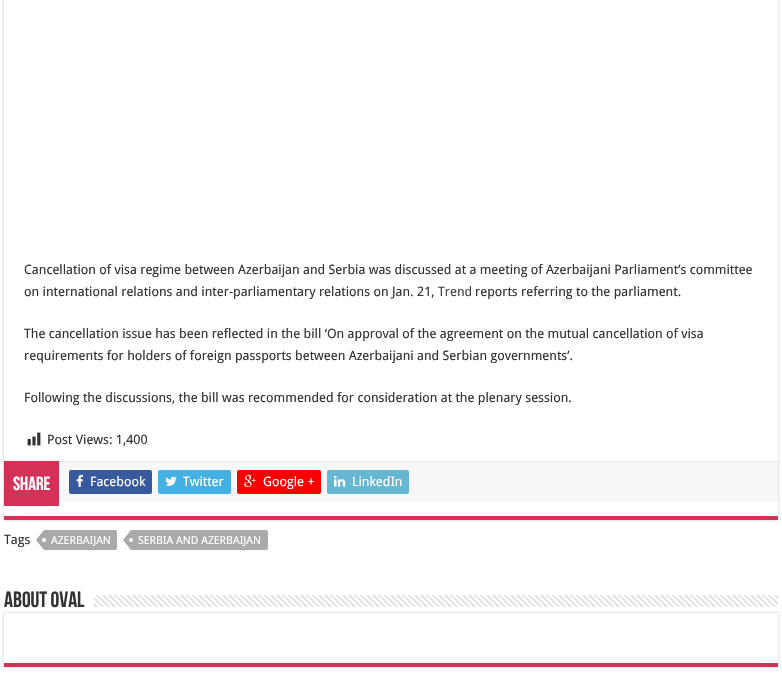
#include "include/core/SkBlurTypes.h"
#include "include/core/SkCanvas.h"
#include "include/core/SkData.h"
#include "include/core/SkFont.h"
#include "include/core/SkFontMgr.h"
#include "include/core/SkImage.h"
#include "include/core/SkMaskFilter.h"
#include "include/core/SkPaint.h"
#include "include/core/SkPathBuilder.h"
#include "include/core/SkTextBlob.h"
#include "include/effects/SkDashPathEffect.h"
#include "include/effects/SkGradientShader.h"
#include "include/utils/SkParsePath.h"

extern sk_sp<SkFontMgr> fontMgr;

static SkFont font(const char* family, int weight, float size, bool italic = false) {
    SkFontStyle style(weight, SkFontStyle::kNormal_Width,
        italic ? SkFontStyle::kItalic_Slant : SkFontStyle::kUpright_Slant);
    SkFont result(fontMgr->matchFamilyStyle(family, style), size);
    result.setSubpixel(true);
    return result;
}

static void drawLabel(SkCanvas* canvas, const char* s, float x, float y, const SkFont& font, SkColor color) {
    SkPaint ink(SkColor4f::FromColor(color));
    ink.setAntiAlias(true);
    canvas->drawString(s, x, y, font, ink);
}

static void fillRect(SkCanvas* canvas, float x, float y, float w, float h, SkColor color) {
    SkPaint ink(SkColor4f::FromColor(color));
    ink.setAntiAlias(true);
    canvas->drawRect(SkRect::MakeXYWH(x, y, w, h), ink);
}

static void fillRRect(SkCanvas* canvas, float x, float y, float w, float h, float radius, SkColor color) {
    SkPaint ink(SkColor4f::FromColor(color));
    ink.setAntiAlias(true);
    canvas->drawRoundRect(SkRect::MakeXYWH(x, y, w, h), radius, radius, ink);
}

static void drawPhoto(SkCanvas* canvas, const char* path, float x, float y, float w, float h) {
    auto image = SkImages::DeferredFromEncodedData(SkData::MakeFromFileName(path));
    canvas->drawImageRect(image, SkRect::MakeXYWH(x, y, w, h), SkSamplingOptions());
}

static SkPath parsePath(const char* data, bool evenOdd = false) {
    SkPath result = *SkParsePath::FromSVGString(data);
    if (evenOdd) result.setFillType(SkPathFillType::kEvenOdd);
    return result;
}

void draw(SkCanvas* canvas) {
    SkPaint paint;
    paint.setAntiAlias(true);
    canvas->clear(0xFFFFFFFF);
    canvas->save();
    canvas->clipPath(parsePath("M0 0H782V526H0ZM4-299H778V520H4Z", true), true);
    paint.setColor(0xFFCACACA);
    paint.setMaskFilter(SkMaskFilter::MakeBlur(kNormal_SkBlurStyle, 1.5f));
    canvas->drawRect(SkRect::MakeXYWH(4, -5, 774, 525), paint);
    paint.setMaskFilter(nullptr);
    canvas->restore();
    fillRect(canvas, 4, 516, 774, 4, 0xFFD43157);
    SkFont font1 = font("Droid Sans", 400, 13);
    drawLabel(canvas, "Cancellation of visa regime between Azerbaijan and Serbia was discussed at a meeting of Azerbaijani Parliament’s committee", 24, 274, font1, 0xFF333333);
    drawLabel(canvas, "on international relations and inter-parliamentary relations on Jan. 21,", 24, 296, font1, 0xFF333333);
    drawLabel(canvas, "Trend", 438, 296, font1, 0xFF444444);
    drawLabel(canvas, "reports referring to the parliament.", 475, 296, font1, 0xFF333333);
    drawLabel(canvas, "The cancellation issue has been reflected in the bill ‘On approval of the agreement on the mutual cancellation of visa", 24, 338, font1, 0xFF333333);
    drawLabel(canvas, "requirements for holders of foreign passports between Azerbaijani and Serbian governments’.", 24, 360, font1, 0xFF333333);
    drawLabel(canvas, "Following the discussions, the bill was recommended for consideration at the plenary session.", 24, 402, font1, 0xFF333333);
    drawPhoto(canvas, "assets/img1.png", 27, 432, 14, 14);
    drawLabel(canvas, "Post Views: 1,400", 47, 444, font1, 0xFF333333);
    fillRect(canvas, 59, 462, 719, 40, 0xFFF7F7F7);
    fillRect(canvas, 59, 461, 719, 1, 0xFFEAEAEA);
    fillRect(canvas, 4, 461, 55, 45, 0xFFD43157);
    SkFont font2 = font("Bebas Neue", 700, 19);
    drawLabel(canvas, "Share", 13, 490, font2, 0xFFFFFFFF);
    fillRRect(canvas, 69, 470, 83, 24, 2, 0xFF39599F);
    drawPhoto(canvas, "assets/img2.png", 76, 474, 7, 13);
    drawLabel(canvas, "Facebook", 90, 486, font1, 0xFFFFFFFF);
    fillRRect(canvas, 158, 470, 73, 24, 2, 0xFF45B0E3);
    drawPhoto(canvas, "assets/img3.png", 165, 476, 12, 10);
    drawLabel(canvas, "Twitter", 183, 486, font1, 0xFFFFFFFF);
    fillRRect(canvas, 237, 470, 84, 24, 2, 0xFFFA0101);
    drawPhoto(canvas, "assets/img4.png", 244, 474, 12, 13);
    drawLabel(canvas, "Google +", 263, 486, font1, 0xFFFFFFFF);
    fillRRect(canvas, 327, 470, 82, 24, 2, 0xFF65B7D2);
    drawPhoto(canvas, "assets/img5.png", 334, 475, 12, 12);
    drawLabel(canvas, "LinkedIn", 352, 486, font1, 0xFFFFFFFF);
    drawLabel(canvas, "Tags", 4, 544, font1, 0xFF333333);
    paint.setColor(0xFFAAAAAA);
    canvas->drawPath(parsePath("M44 530H115C116 530 117 531 117 532V548C117 549 116 550 115 550H44Z"), paint);
    canvas->drawPath(parsePath("M44 530V550L36 540Z"), paint);
    SkFont font3 = font("Droid Sans", 400, 11);
    drawLabel(canvas, "AZERBAIJAN", 51, 544, font3, 0xFFFFFFFF);
    paint.setColor(0xFFFFFFFF);
    canvas->drawCircle(44, 540, 2, paint);
    paint.setColor(0xFFAAAAAA);
    canvas->drawPath(parsePath("M131 530H266C267 530 268 531 268 532V548C268 549 267 550 266 550H131Z"), paint);
    canvas->drawPath(parsePath("M131 530V550L123 540Z"), paint);
    drawLabel(canvas, "SERBIA AND AZERBAIJAN", 138, 544, font3, 0xFFFFFFFF);
    paint.setColor(0xFFFFFFFF);
    canvas->drawCircle(131, 540, 2, paint);
    canvas->save();
    canvas->clipPath(parsePath("M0 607H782V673H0ZM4 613H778V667H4Z", true), true);
    paint.setColor(0xFFCACACA);
    paint.setMaskFilter(SkMaskFilter::MakeBlur(kNormal_SkBlurStyle, 1.5f));
    canvas->drawRect(SkRect::MakeXYWH(4, 613, 774, 54), paint);
    paint.setMaskFilter(nullptr);
    canvas->restore();
    SkFont font4 = font("Bebas Neue", 700, 22);
    drawLabel(canvas, "About oval", 4, 607, font4, 0xFF333333);
    drawPhoto(canvas, "assets/img6.png", 94, 595, 684, 12);
    fillRect(canvas, 4, 663, 774, 4, 0xFFD43157);
}
